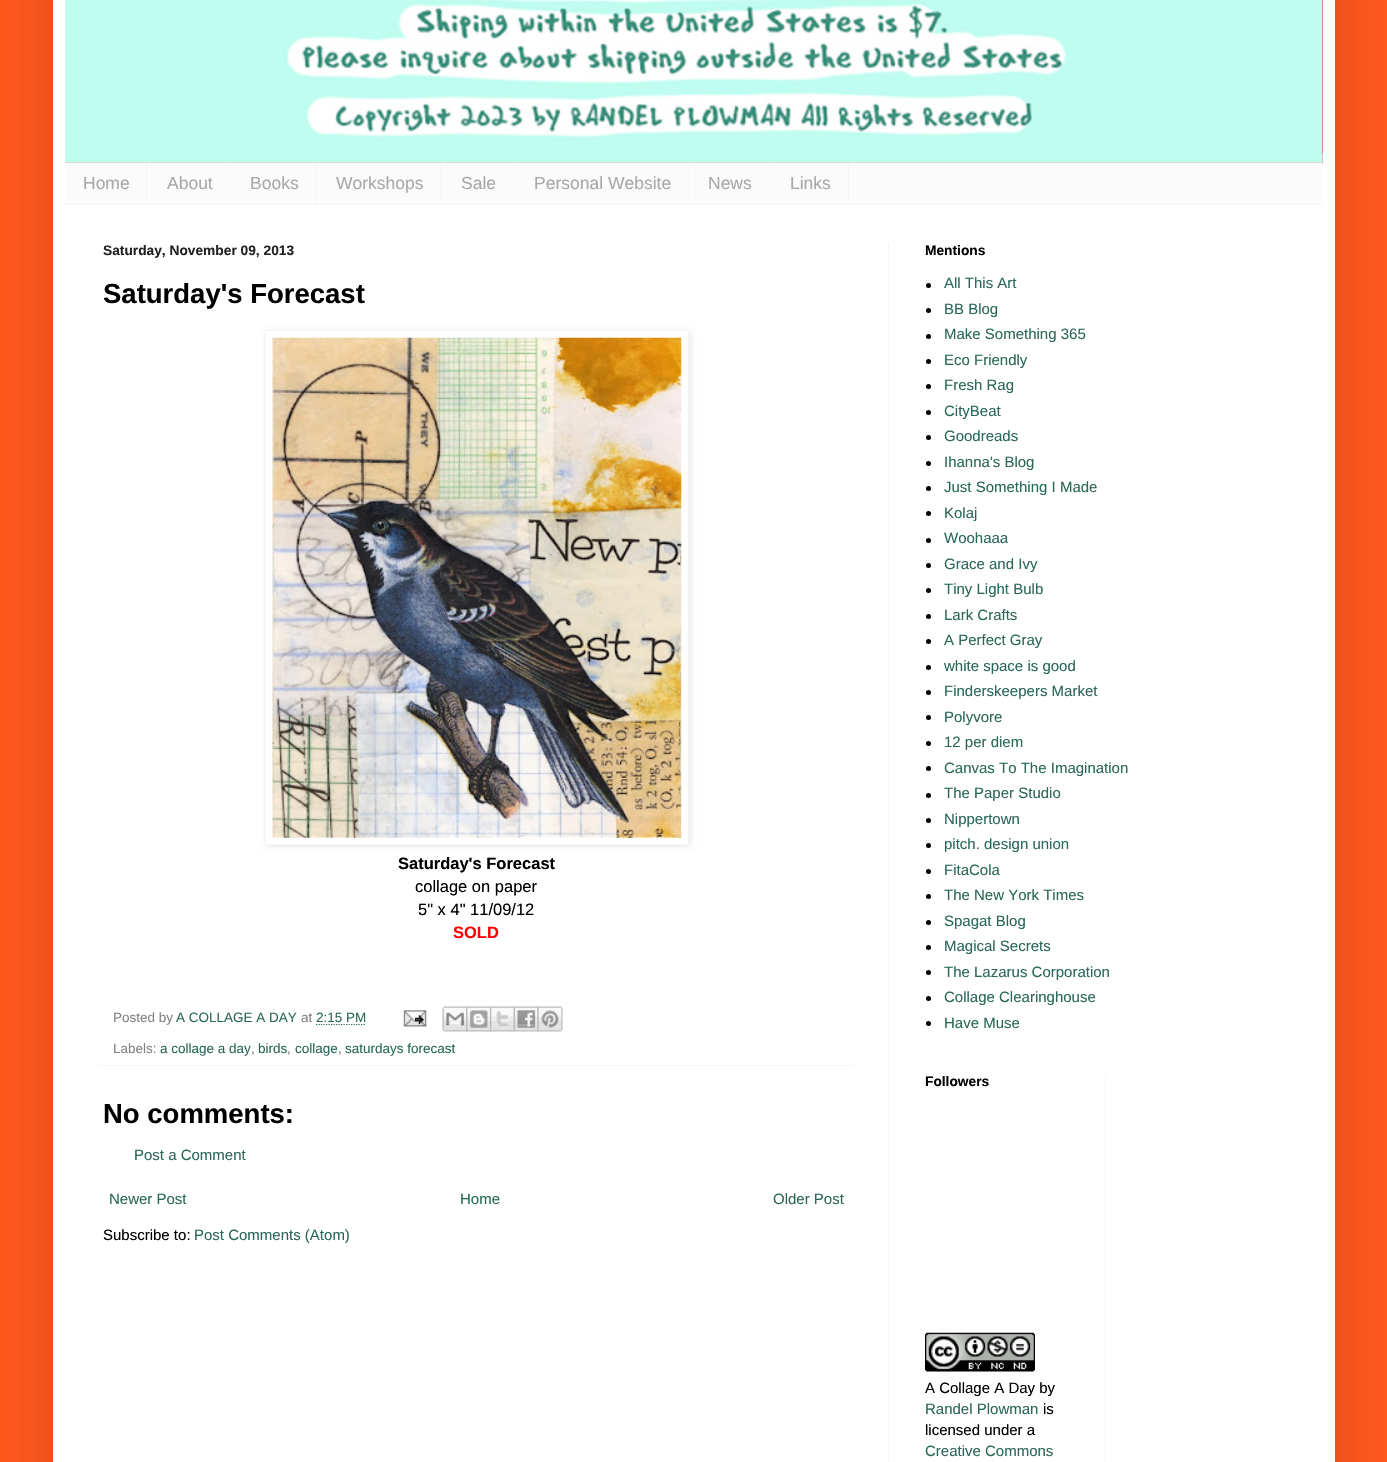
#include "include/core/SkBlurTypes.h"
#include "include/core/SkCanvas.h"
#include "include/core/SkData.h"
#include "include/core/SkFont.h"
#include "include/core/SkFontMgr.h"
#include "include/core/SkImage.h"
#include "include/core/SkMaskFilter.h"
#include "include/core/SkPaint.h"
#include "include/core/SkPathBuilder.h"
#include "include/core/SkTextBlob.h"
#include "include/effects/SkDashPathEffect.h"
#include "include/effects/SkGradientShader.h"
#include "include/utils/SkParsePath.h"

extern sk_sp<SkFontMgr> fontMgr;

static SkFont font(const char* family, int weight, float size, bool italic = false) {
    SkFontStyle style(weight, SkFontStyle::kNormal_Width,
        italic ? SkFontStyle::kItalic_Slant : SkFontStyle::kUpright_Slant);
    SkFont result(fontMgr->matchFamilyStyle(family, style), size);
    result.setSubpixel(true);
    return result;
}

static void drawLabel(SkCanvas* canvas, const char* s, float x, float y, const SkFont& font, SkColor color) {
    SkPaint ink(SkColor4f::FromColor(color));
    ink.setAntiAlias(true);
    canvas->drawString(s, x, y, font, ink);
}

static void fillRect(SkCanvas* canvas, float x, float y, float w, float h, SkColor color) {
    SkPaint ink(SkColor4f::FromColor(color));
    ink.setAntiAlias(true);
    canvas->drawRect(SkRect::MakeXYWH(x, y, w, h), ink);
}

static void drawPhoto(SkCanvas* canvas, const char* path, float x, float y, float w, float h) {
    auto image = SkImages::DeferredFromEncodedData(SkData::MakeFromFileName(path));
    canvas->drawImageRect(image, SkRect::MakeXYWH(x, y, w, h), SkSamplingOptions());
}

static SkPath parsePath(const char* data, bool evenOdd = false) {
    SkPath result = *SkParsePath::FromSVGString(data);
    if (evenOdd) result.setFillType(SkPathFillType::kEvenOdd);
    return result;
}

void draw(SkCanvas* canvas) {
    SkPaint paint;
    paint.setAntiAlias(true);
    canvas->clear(0xFFFF581D);
    paint.setColor(0x26000000);
    paint.setMaskFilter(SkMaskFilter::MakeBlur(kNormal_SkBlurStyle, 25));
    canvas->drawRect(SkRect::MakeXYWH(53, -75, 1282, 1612), paint);
    paint.setMaskFilter(nullptr);
    fillRect(canvas, 53, 0, 1282, 1462, 0xFFFFFFFF);
    fillRect(canvas, 65, 0, 1258, 163, 0xFFED2424);
    drawPhoto(canvas, "assets/img1.png", 65, 153, 1258, 10);
    drawPhoto(canvas, "assets/img2.png", 65, 0, 1258, 163);
    fillRect(canvas, 65, 163, 1258, 41, 0xFFFBFBFB);
    fillRect(canvas, 1322, 162, 1, 1, 0xFFE59894);
    fillRect(canvas, 65, 204, 1258, 1, 0xFFF5F5F5);
    fillRect(canvas, 146, 163, 1, 41, 0xFFF5F5F5);
    SkFont font1 = font("Liberation Sans", 400, 17.5f);
    drawLabel(canvas, "Home", 83, 189, font1, 0xFFA8A8A8);
    fillRect(canvas, 230, 163, 1, 41, 0xFFF5F5F5);
    fillRect(canvas, 148, 163, 1, 41, 0xFFFFFFFF);
    drawLabel(canvas, "About", 167, 189, font1, 0xFFA8A8A8);
    fillRect(canvas, 316, 163, 1, 41, 0xFFF5F5F5);
    fillRect(canvas, 231, 163, 1, 41, 0xFFFFFFFF);
    drawLabel(canvas, "Books", 250, 189, font1, 0xFFA8A8A8);
    fillRect(canvas, 441, 163, 1, 41, 0xFFF5F5F5);
    fillRect(canvas, 318, 163, 1, 41, 0xFFFFFFFF);
    drawLabel(canvas, "Workshops", 336, 189, font1, 0xFFA8A8A8);
    fillRect(canvas, 514, 163, 1, 41, 0xFFF5F5F5);
    fillRect(canvas, 443, 163, 1, 41, 0xFFFFFFFF);
    drawLabel(canvas, "Sale", 461, 189, font1, 0xFFA8A8A8);
    fillRect(canvas, 689, 163, 1, 41, 0xFFF5F5F5);
    fillRect(canvas, 515, 163, 1, 41, 0xFFFFFFFF);
    drawLabel(canvas, "Personal Website", 534, 189, font1, 0xFFA8A8A8);
    fillRect(canvas, 770, 163, 1, 41, 0xFFF5F5F5);
    fillRect(canvas, 690, 163, 1, 41, 0xFFFFFFFF);
    drawLabel(canvas, "News", 708, 189, font1, 0xFFA8A8A8);
    fillRect(canvas, 848, 163, 1, 41, 0xFFF5F5F5);
    fillRect(canvas, 771, 163, 1, 41, 0xFFFFFFFF);
    drawLabel(canvas, "Links", 790, 189, font1, 0xFFA8A8A8);
    fillRect(canvas, 888, 243, 1, 1219, 0xFFF5F5F5);
    SkFont font2 = font("Liberation Sans", 700, 13.75f);
    drawLabel(canvas, "Saturday, November 09, 2013", 103, 255, font2, 0xFF222222);
    SkFont font3 = font("Liberation Sans", 700, 27.5f);
    drawLabel(canvas, "Saturday's Forecast", 103, 303, font3, 0xFF000000);
    paint.setColor(0x1A000000);
    paint.setMaskFilter(SkMaskFilter::MakeBlur(kNormal_SkBlurStyle, 3));
    canvas->drawRect(SkRect::MakeXYWH(266, 331, 424, 515), paint);
    paint.setMaskFilter(nullptr);
    paint.setColor(0xFFFFFFFF);
    canvas->drawRect(SkRect::MakeXYWH(265.5f, 330.5f, 423, 514), paint);
    paint.setStroke(true);
    paint.setStrokeWidth(1);
    paint.setColor(0xFFF5F5F5);
    canvas->drawRect(SkRect::MakeXYWH(265.5f, 330.5f, 423, 514), paint);
    drawPhoto(canvas, "assets/img3.png", 272, 337, 410, 501);
    SkFont font4 = font("Liberation Sans", 700, 16.5f);
    drawLabel(canvas, "Saturday's Forecast", 398, 869, font4, 0xFF000000);
    SkFont font5 = font("Liberation Sans", 400, 16.5f);
    drawLabel(canvas, "collage on paper", 415, 892, font5, 0xFF000000);
    drawLabel(canvas, "5\" x 4\" 11/09/12", 418, 915, font5, 0xFF000000);
    drawLabel(canvas, "SOLD", 453, 938, font4, 0xFFFF0000);
    fillRect(canvas, 100, 1065, 753, 1, 0xFFF5F5F5);
    SkFont font6 = font("Liberation Sans", 400, 13.5f);
    drawLabel(canvas, "Posted by", 113, 1022, font6, 0xFF838383);
    drawLabel(canvas, "A COLLAGE A DAY", 176, 1022, font6, 0xFF2A6859);
    drawLabel(canvas, "at", 301, 1022, font6, 0xFF838383);
    drawLabel(canvas, "2:15 PM", 316, 1022, font6, 0xFF2A6859);
    paint.setStrokeWidth(1.2f);
    paint.setColor(0xFF2A6859);
    paint.setPathEffect(SkDashPathEffect::Make({{1.25f, 1.25f}}, 0));
    canvas->drawPath(parsePath("M316 1024.5H366"), paint);
    paint.setPathEffect(nullptr);
    drawPhoto(canvas, "assets/img4.png", 403, 1010, 24, 17);
    drawPhoto(canvas, "assets/img5.png", 442, 1006, 26, 26);
    drawPhoto(canvas, "assets/img6.png", 466, 1006, 26, 26);
    drawPhoto(canvas, "assets/img7.png", 490, 1006, 25, 26);
    drawPhoto(canvas, "assets/img8.png", 513, 1006, 26, 26);
    drawPhoto(canvas, "assets/img9.png", 537, 1006, 26, 26);
    drawLabel(canvas, "Labels:", 113, 1053, font6, 0xFF838383);
    drawLabel(canvas, "a collage a day", 160, 1053, font6, 0xFF2A6859);
    drawLabel(canvas, ",", 251, 1053, font6, 0xFF838383);
    drawLabel(canvas, "birds", 258, 1053, font6, 0xFF2A6859);
    drawLabel(canvas, ",", 287, 1053, font6, 0xFF838383);
    drawLabel(canvas, "collage", 295, 1053, font6, 0xFF2A6859);
    drawLabel(canvas, ",", 338, 1053, font6, 0xFF838383);
    drawLabel(canvas, "saturdays forecast", 345, 1053, font6, 0xFF2A6859);
    drawLabel(canvas, "No comments:", 103, 1123, font3, 0xFF000000);
    SkFont font7 = font("Liberation Sans", 400, 15);
    drawLabel(canvas, "Post a Comment", 134, 1160, font7, 0xFF2A6859);
    drawLabel(canvas, "Newer Post", 109, 1204, font7, 0xFF2A6859);
    drawLabel(canvas, "Home", 460, 1204, font7, 0xFF2A6859);
    drawLabel(canvas, "Older Post", 773, 1204, font7, 0xFF2A6859);
    drawLabel(canvas, "Subscribe to:", 103, 1240, font7, 0xFF000000);
    drawLabel(canvas, "Post Comments (Atom)", 194, 1240, font7, 0xFF2A6859);
    drawLabel(canvas, "Mentions", 925, 255, font2, 0xFF000000);
    paint.setStroke(false);
    paint.setColor(0xFF000000);
    canvas->drawCircle(928.5f, 285.5f, 2.5f, paint);
    drawLabel(canvas, "All This Art", 944, 288, font7, 0xFF2A6859);
    canvas->drawCircle(928.5f, 310.5f, 2.5f, paint);
    drawLabel(canvas, "BB Blog", 944, 314, font7, 0xFF2A6859);
    canvas->drawCircle(928.5f, 336.5f, 2.5f, paint);
    drawLabel(canvas, "Make Something 365", 944, 339, font7, 0xFF2A6859);
    canvas->drawCircle(928.5f, 361.5f, 2.5f, paint);
    drawLabel(canvas, "Eco Friendly", 944, 365, font7, 0xFF2A6859);
    canvas->drawCircle(928.5f, 386.5f, 2.5f, paint);
    drawLabel(canvas, "Fresh Rag", 944, 390, font7, 0xFF2A6859);
    canvas->drawCircle(928.5f, 412.5f, 2.5f, paint);
    drawLabel(canvas, "CityBeat", 944, 416, font7, 0xFF2A6859);
    canvas->drawCircle(928.5f, 437.5f, 2.5f, paint);
    drawLabel(canvas, "Goodreads", 944, 441, font7, 0xFF2A6859);
    canvas->drawCircle(928.5f, 463.5f, 2.5f, paint);
    drawLabel(canvas, "Ihanna's Blog", 944, 467, font7, 0xFF2A6859);
    canvas->drawCircle(928.5f, 488.5f, 2.5f, paint);
    drawLabel(canvas, "Just Something I Made", 944, 492, font7, 0xFF2A6859);
    canvas->drawCircle(928.5f, 513.5f, 2.5f, paint);
    drawLabel(canvas, "Kolaj", 944, 518, font7, 0xFF2A6859);
    canvas->drawCircle(928.5f, 540.5f, 2.5f, paint);
    drawLabel(canvas, "Woohaaa", 944, 543, font7, 0xFF2A6859);
    canvas->drawCircle(928.5f, 565.5f, 2.5f, paint);
    drawLabel(canvas, "Grace and Ivy", 944, 569, font7, 0xFF2A6859);
    canvas->drawCircle(928.5f, 590.5f, 2.5f, paint);
    drawLabel(canvas, "Tiny Light Bulb", 944, 594, font7, 0xFF2A6859);
    canvas->drawCircle(928.5f, 616.5f, 2.5f, paint);
    drawLabel(canvas, "Lark Crafts", 944, 620, font7, 0xFF2A6859);
    canvas->drawCircle(928.5f, 641.5f, 2.5f, paint);
    drawLabel(canvas, "A Perfect Gray", 944, 645, font7, 0xFF2A6859);
    canvas->drawCircle(928.5f, 667.5f, 2.5f, paint);
    drawLabel(canvas, "white space is good", 944, 671, font7, 0xFF2A6859);
    canvas->drawCircle(928.5f, 692.5f, 2.5f, paint);
    drawLabel(canvas, "Finderskeepers Market", 944, 696, font7, 0xFF2A6859);
    canvas->drawCircle(928.5f, 717.5f, 2.5f, paint);
    drawLabel(canvas, "Polyvore", 944, 722, font7, 0xFF2A6859);
    canvas->drawCircle(928.5f, 743.5f, 2.5f, paint);
    drawLabel(canvas, "12 per diem", 944, 747, font7, 0xFF2A6859);
    canvas->drawCircle(928.5f, 768.5f, 2.5f, paint);
    drawLabel(canvas, "Canvas To The Imagination", 944, 773, font7, 0xFF2A6859);
    canvas->drawCircle(928.5f, 795.5f, 2.5f, paint);
    drawLabel(canvas, "The Paper Studio", 944, 798, font7, 0xFF2A6859);
    canvas->drawCircle(928.5f, 820.5f, 2.5f, paint);
    drawLabel(canvas, "Nippertown", 944, 824, font7, 0xFF2A6859);
    canvas->drawCircle(928.5f, 845.5f, 2.5f, paint);
    drawLabel(canvas, "pitch. design union", 944, 849, font7, 0xFF2A6859);
    canvas->drawCircle(928.5f, 871.5f, 2.5f, paint);
    drawLabel(canvas, "FitaCola", 944, 875, font7, 0xFF2A6859);
    canvas->drawCircle(928.5f, 896.5f, 2.5f, paint);
    drawLabel(canvas, "The New York Times", 944, 900, font7, 0xFF2A6859);
    canvas->drawCircle(928.5f, 922.5f, 2.5f, paint);
    drawLabel(canvas, "Spagat Blog", 944, 926, font7, 0xFF2A6859);
    canvas->drawCircle(928.5f, 947.5f, 2.5f, paint);
    drawLabel(canvas, "Magical Secrets", 944, 951, font7, 0xFF2A6859);
    canvas->drawCircle(928.5f, 972.5f, 2.5f, paint);
    drawLabel(canvas, "The Lazarus Corporation", 944, 977, font7, 0xFF2A6859);
    canvas->drawCircle(928.5f, 998.5f, 2.5f, paint);
    drawLabel(canvas, "Collage Clearinghouse", 944, 1002, font7, 0xFF2A6859);
    canvas->drawCircle(928.5f, 1023.5f, 2.5f, paint);
    drawLabel(canvas, "Have Muse", 944, 1028, font7, 0xFF2A6859);
    drawLabel(canvas, "Followers", 925, 1086, font2, 0xFF000000);
    drawPhoto(canvas, "assets/img10.png", 925, 1332, 110, 40);
    drawLabel(canvas, "A Collage A Day by", 925, 1393, font7, 0xFF000000);
    drawLabel(canvas, "Randel Plowman", 925, 1414, font7, 0xFF2A6859);
    drawLabel(canvas, "is", 1043, 1414, font7, 0xFF000000);
    drawLabel(canvas, "licensed under a", 925, 1435, font7, 0xFF000000);
    drawLabel(canvas, "Creative Commons", 925, 1456, font7, 0xFF2A6859);
    fillRect(canvas, 1105, 1074, 1, 388, 0xFFF5F5F5);
}
